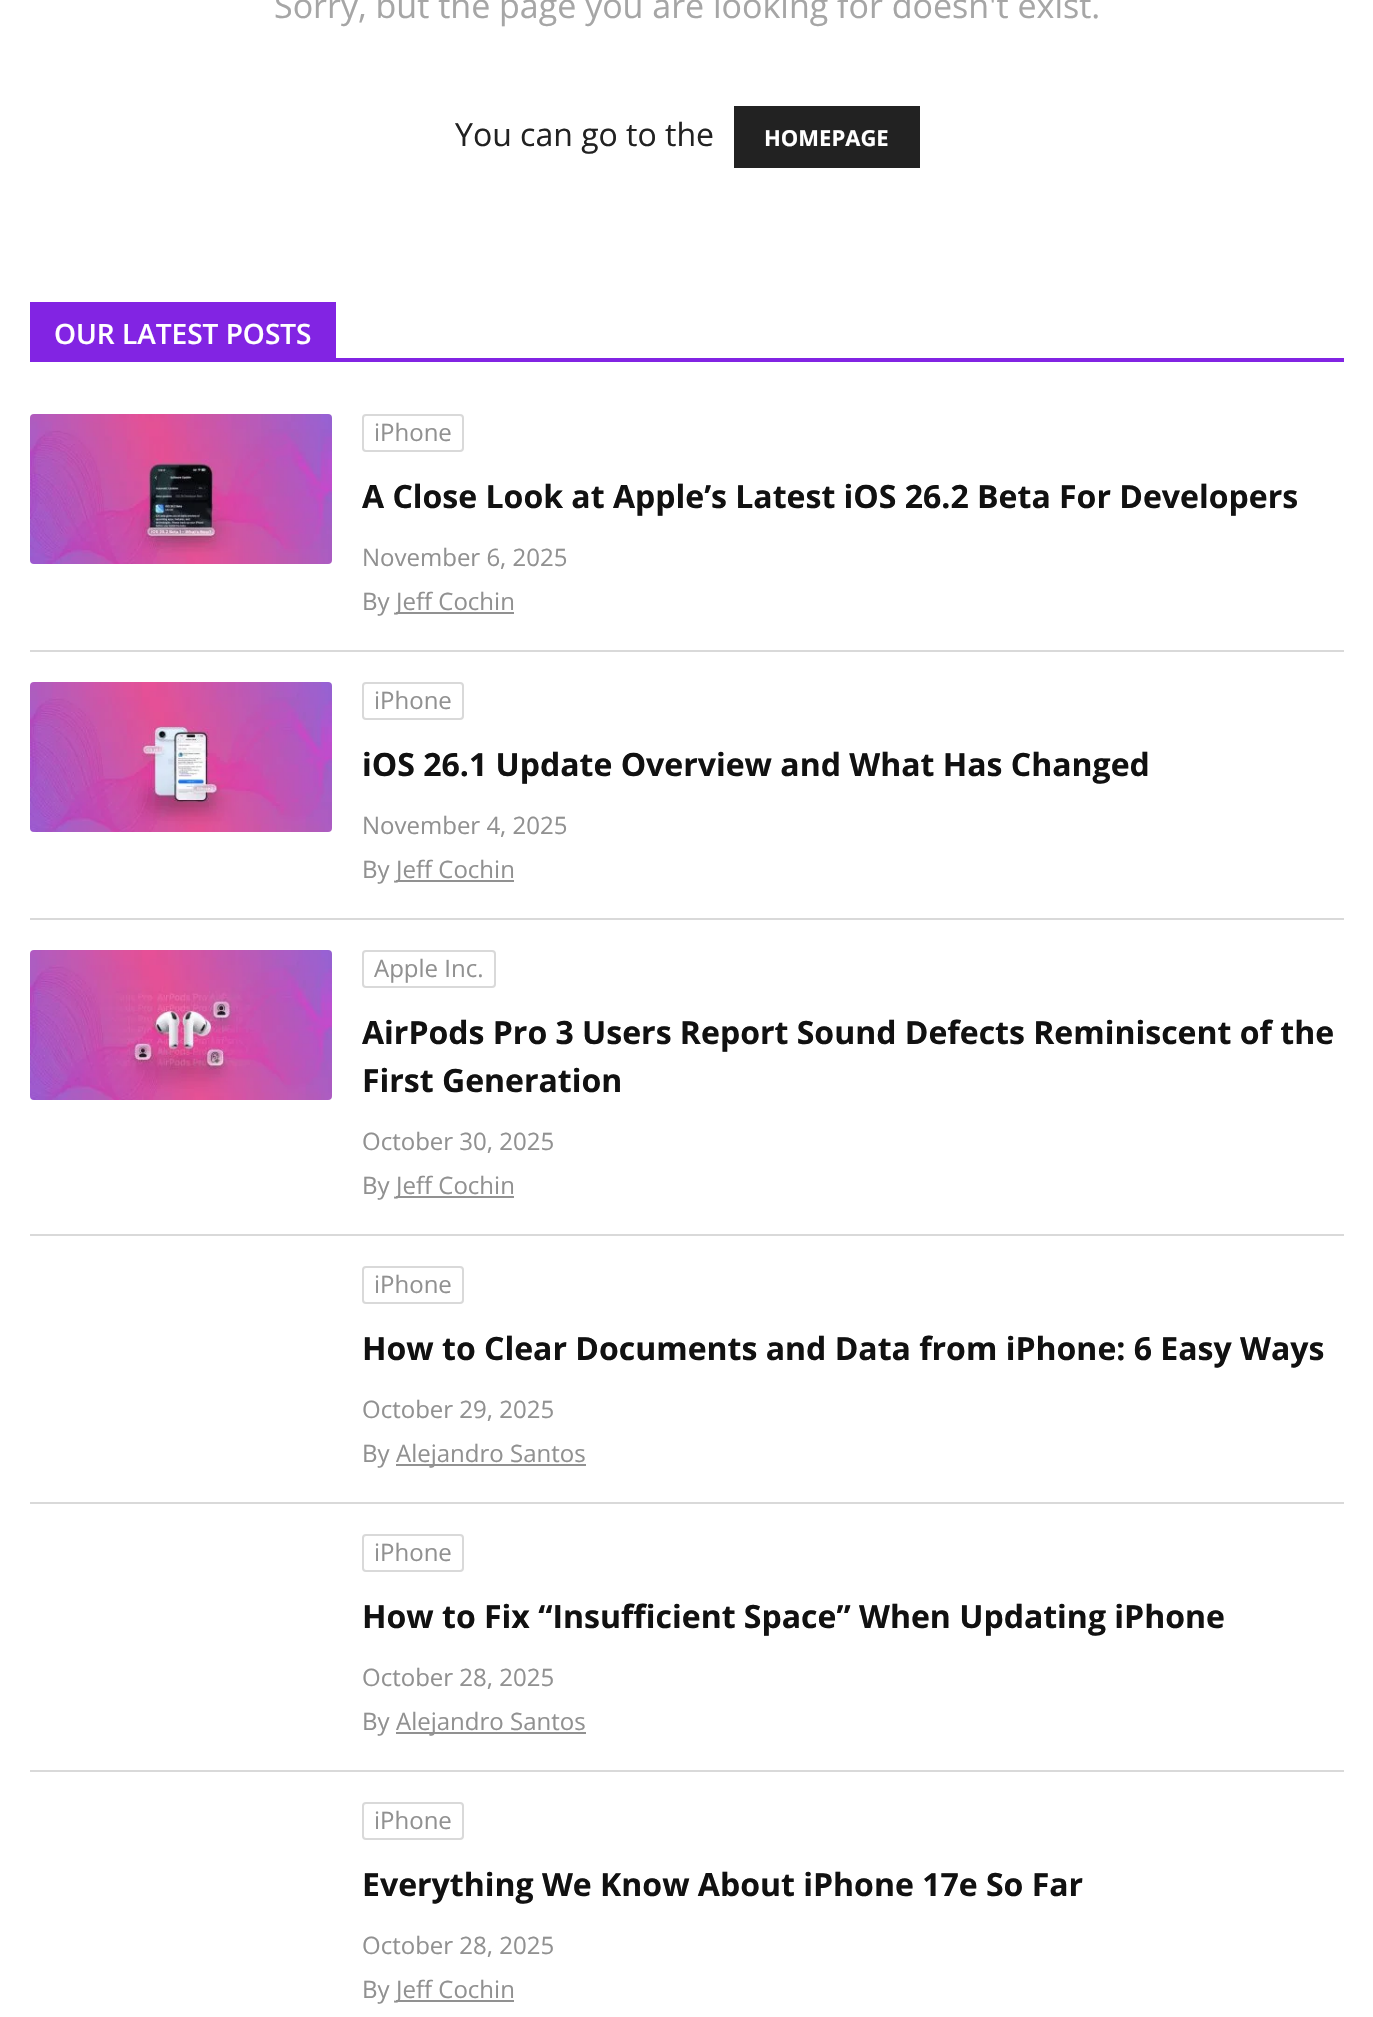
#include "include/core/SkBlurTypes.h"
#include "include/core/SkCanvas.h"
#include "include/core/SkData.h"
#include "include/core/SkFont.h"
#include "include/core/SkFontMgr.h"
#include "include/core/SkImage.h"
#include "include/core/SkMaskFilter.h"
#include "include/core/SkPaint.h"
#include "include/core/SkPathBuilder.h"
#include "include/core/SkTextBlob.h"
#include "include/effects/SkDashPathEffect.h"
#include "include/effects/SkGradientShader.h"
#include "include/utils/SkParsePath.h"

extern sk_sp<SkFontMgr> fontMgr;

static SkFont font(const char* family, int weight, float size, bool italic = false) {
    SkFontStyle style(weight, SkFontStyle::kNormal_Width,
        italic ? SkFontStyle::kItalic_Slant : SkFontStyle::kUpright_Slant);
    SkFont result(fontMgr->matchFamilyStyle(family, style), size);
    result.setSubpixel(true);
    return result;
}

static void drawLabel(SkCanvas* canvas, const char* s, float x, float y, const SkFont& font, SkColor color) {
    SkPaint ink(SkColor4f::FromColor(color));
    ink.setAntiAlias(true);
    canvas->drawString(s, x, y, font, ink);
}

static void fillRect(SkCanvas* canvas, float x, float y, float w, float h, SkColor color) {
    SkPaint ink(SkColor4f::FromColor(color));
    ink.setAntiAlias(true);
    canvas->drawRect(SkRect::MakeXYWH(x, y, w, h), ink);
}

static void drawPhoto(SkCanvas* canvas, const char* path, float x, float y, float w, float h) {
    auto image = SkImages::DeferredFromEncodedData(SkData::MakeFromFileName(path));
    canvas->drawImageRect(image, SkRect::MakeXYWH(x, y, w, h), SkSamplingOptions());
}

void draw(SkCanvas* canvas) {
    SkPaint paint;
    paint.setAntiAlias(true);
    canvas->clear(0xFFFFFFFF);
    SkFont font1 = font("Open Sans", 400, 34);
    drawLabel(canvas, "Sorry, but the page you are looking for doesn't exist.", 274, 18, font1, 0xFFA6A6A6);
    SkFont font2 = font("Open Sans", 400, 32);
    drawLabel(canvas, "You can go to the", 455, 146, font2, 0xFF222222);
    fillRect(canvas, 734, 106, 186, 62, 0xFF222222);
    SkFont font3 = font("Open Sans", 700, 22);
    drawLabel(canvas, "HOMEPAGE", 764, 146, font3, 0xFFFFFFFF);
    fillRect(canvas, 30, 358, 1314, 4, 0xFF8224E3);
    fillRect(canvas, 30, 302, 306, 56, 0xFF8224E3);
    SkFont font4 = font("Open Sans", 600, 28);
    drawLabel(canvas, "OUR LATEST POSTS", 54, 344, font4, 0xFFFFFFFF);
    drawPhoto(canvas, "assets/img1.png", 30, 414, 302, 150);
    paint.setStroke(true);
    paint.setStrokeWidth(2);
    paint.setColor(0xFFD9D9D9);
    canvas->drawRoundRect(SkRect::MakeXYWH(363, 415, 100, 36), 3, 3, paint);
    SkFont font5 = font("Open Sans", 400, 24);
    drawLabel(canvas, "iPhone", 374, 441, font5, 0xFF919191);
    SkFont font6 = font("Open Sans", 700, 32);
    drawLabel(canvas, "A Close Look at Apple’s Latest iOS 26.2 Beta For Developers", 362, 508, font6, 0xFF111111);
    drawLabel(canvas, "November 6, 2025", 362, 566, font5, 0xFF919191);
    drawLabel(canvas, "By", 362, 610, font5, 0xFF919191);
    fillRect(canvas, 396, 612, 118, 2, 0xFF919191);
    drawLabel(canvas, "Jeff Cochin", 396, 610, font5, 0xFF919191);
    fillRect(canvas, 30, 650, 1314, 2, 0xFFD9D9D9);
    drawPhoto(canvas, "assets/img2.png", 30, 682, 302, 150);
    canvas->drawRoundRect(SkRect::MakeXYWH(363, 683, 100, 36), 3, 3, paint);
    drawLabel(canvas, "iPhone", 374, 709, font5, 0xFF919191);
    drawLabel(canvas, "iOS 26.1 Update Overview and What Has Changed", 362, 776, font6, 0xFF111111);
    drawLabel(canvas, "November 4, 2025", 362, 834, font5, 0xFF919191);
    drawLabel(canvas, "By", 362, 878, font5, 0xFF919191);
    fillRect(canvas, 396, 880, 118, 2, 0xFF919191);
    drawLabel(canvas, "Jeff Cochin", 396, 878, font5, 0xFF919191);
    fillRect(canvas, 30, 918, 1314, 2, 0xFFD9D9D9);
    drawPhoto(canvas, "assets/img3.png", 30, 950, 302, 150);
    canvas->drawRoundRect(SkRect::MakeXYWH(363, 951, 132, 36), 3, 3, paint);
    drawLabel(canvas, "Apple Inc.", 374, 977, font5, 0xFF919191);
    drawLabel(canvas, "AirPods Pro 3 Users Report Sound Defects Reminiscent of the", 362, 1044, font6, 0xFF111111);
    drawLabel(canvas, "First Generation", 362, 1092, font6, 0xFF111111);
    drawLabel(canvas, "October 30, 2025", 362, 1150, font5, 0xFF919191);
    drawLabel(canvas, "By", 362, 1194, font5, 0xFF919191);
    fillRect(canvas, 396, 1196, 118, 2, 0xFF919191);
    drawLabel(canvas, "Jeff Cochin", 396, 1194, font5, 0xFF919191);
    fillRect(canvas, 30, 1234, 1314, 2, 0xFFD9D9D9);
    canvas->drawRoundRect(SkRect::MakeXYWH(363, 1267, 100, 36), 3, 3, paint);
    drawLabel(canvas, "iPhone", 374, 1293, font5, 0xFF919191);
    drawLabel(canvas, "How to Clear Documents and Data from iPhone: 6 Easy Ways", 362, 1360, font6, 0xFF111111);
    drawLabel(canvas, "October 29, 2025", 362, 1418, font5, 0xFF919191);
    drawLabel(canvas, "By", 362, 1462, font5, 0xFF919191);
    fillRect(canvas, 396, 1464, 190, 2, 0xFF919191);
    drawLabel(canvas, "Alejandro Santos", 396, 1462, font5, 0xFF919191);
    fillRect(canvas, 30, 1502, 1314, 2, 0xFFD9D9D9);
    canvas->drawRoundRect(SkRect::MakeXYWH(363, 1535, 100, 36), 3, 3, paint);
    drawLabel(canvas, "iPhone", 374, 1561, font5, 0xFF919191);
    drawLabel(canvas, "How to Fix “Insufficient Space” When Updating iPhone", 362, 1628, font6, 0xFF111111);
    drawLabel(canvas, "October 28, 2025", 362, 1686, font5, 0xFF919191);
    drawLabel(canvas, "By", 362, 1730, font5, 0xFF919191);
    fillRect(canvas, 396, 1732, 190, 2, 0xFF919191);
    drawLabel(canvas, "Alejandro Santos", 396, 1730, font5, 0xFF919191);
    fillRect(canvas, 30, 1770, 1314, 2, 0xFFD9D9D9);
    canvas->drawRoundRect(SkRect::MakeXYWH(363, 1803, 100, 36), 3, 3, paint);
    drawLabel(canvas, "iPhone", 374, 1829, font5, 0xFF919191);
    drawLabel(canvas, "Everything We Know About iPhone 17e So Far", 362, 1896, font6, 0xFF111111);
    drawLabel(canvas, "October 28, 2025", 362, 1954, font5, 0xFF919191);
    drawLabel(canvas, "By", 362, 1998, font5, 0xFF919191);
    fillRect(canvas, 396, 2000, 118, 2, 0xFF919191);
    drawLabel(canvas, "Jeff Cochin", 396, 1998, font5, 0xFF919191);
}
